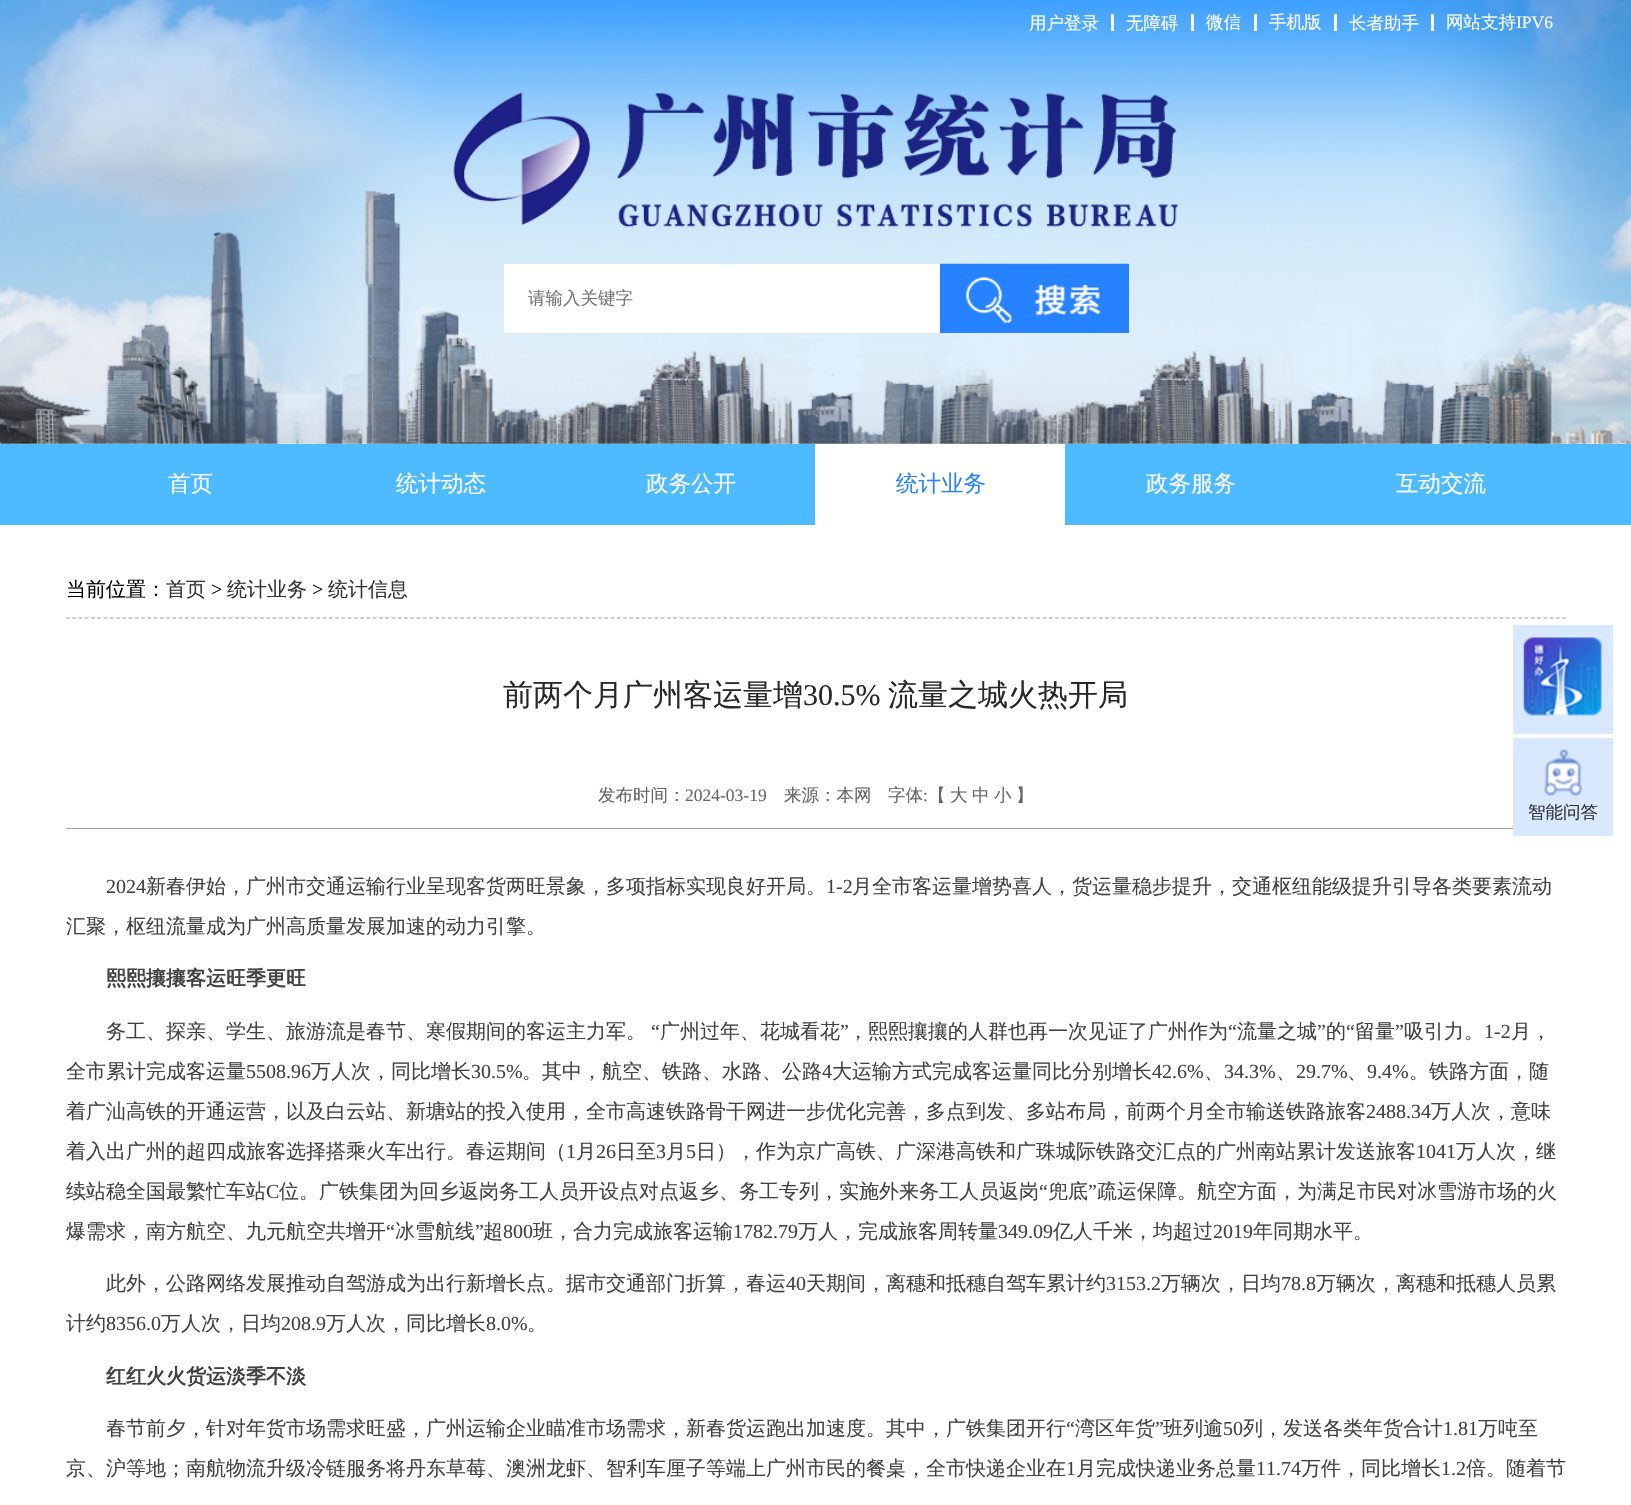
#include "include/core/SkBlurTypes.h"
#include "include/core/SkCanvas.h"
#include "include/core/SkData.h"
#include "include/core/SkFont.h"
#include "include/core/SkFontMgr.h"
#include "include/core/SkImage.h"
#include "include/core/SkMaskFilter.h"
#include "include/core/SkPaint.h"
#include "include/core/SkPathBuilder.h"
#include "include/core/SkTextBlob.h"
#include "include/effects/SkDashPathEffect.h"
#include "include/effects/SkGradientShader.h"
#include "include/utils/SkParsePath.h"

extern sk_sp<SkFontMgr> fontMgr;

static SkFont font(const char* family, int weight, float size, bool italic = false) {
    SkFontStyle style(weight, SkFontStyle::kNormal_Width,
        italic ? SkFontStyle::kItalic_Slant : SkFontStyle::kUpright_Slant);
    SkFont result(fontMgr->matchFamilyStyle(family, style), size);
    result.setSubpixel(true);
    return result;
}

static void drawLabel(SkCanvas* canvas, const char* s, float x, float y, const SkFont& font, SkColor color) {
    SkPaint ink(SkColor4f::FromColor(color));
    ink.setAntiAlias(true);
    canvas->drawString(s, x, y, font, ink);
}

static void fillRect(SkCanvas* canvas, float x, float y, float w, float h, SkColor color) {
    SkPaint ink(SkColor4f::FromColor(color));
    ink.setAntiAlias(true);
    canvas->drawRect(SkRect::MakeXYWH(x, y, w, h), ink);
}

static void drawPhoto(SkCanvas* canvas, const char* path, float x, float y, float w, float h) {
    auto image = SkImages::DeferredFromEncodedData(SkData::MakeFromFileName(path));
    canvas->drawImageRect(image, SkRect::MakeXYWH(x, y, w, h), SkSamplingOptions());
}

static SkPath parsePath(const char* data, bool evenOdd = false) {
    SkPath result = *SkParsePath::FromSVGString(data);
    if (evenOdd) result.setFillType(SkPathFillType::kEvenOdd);
    return result;
}

void draw(SkCanvas* canvas) {
    SkPaint paint;
    paint.setAntiAlias(true);
    canvas->clear(0xFFFFFFFF);
    drawPhoto(canvas, "assets/img1.png", 0, 0, 1631, 444);
    SkFont font1 = font("WenQuanYi Zen Hei", 500, 17.5f);
    drawLabel(canvas, "用户登录", 1029, 29, font1, 0xFFFFFFFF);
    fillRect(canvas, 1111, 14, 3, 17, 0xFFFFFFFF);
    drawLabel(canvas, "无障碍", 1126, 29, font1, 0xFFFFFFFF);
    fillRect(canvas, 1191, 14, 3, 17, 0xFFFFFFFF);
    drawLabel(canvas, "微信", 1206, 28, font1, 0xFFFFFFFF);
    fillRect(canvas, 1254, 14, 3, 17, 0xFFFFFFFF);
    drawLabel(canvas, "手机版", 1269, 28, font1, 0xFFFFFFFF);
    fillRect(canvas, 1334, 14, 3, 17, 0xFFFFFFFF);
    drawLabel(canvas, "长者助手", 1349, 29, font1, 0xFFFFFFFF);
    fillRect(canvas, 1431, 14, 3, 17, 0xFFFFFFFF);
    drawLabel(canvas, "网站支持", 1446, 28, font1, 0xFFFFFFFF);
    SkFont font2 = font("Liberation Serif", 400, 17.5f);
    drawLabel(canvas, "IPV6", 1516, 28, font2, 0xFFFFFFFF);
    drawPhoto(canvas, "assets/img2.png", 453, 92, 725, 135);
    fillRect(canvas, 504, 264, 436, 69, 0xFFFFFFFF);
    drawLabel(canvas, "请输入关键字", 528, 304, font1, 0xFF757575);
    fillRect(canvas, 940, 264, 189, 69, 0xFF2782FF);
    drawPhoto(canvas, "assets/img3.png", 940, 263, 189, 60);
    fillRect(canvas, 0, 444, 1631, 81, 0xFF4EBAFF);
    SkFont font3 = font("WenQuanYi Zen Hei", 500, 22.5f);
    drawLabel(canvas, "首页", 168, 491, font3, 0xFFFFFFFF);
    drawLabel(canvas, "统计动态", 396, 491, font3, 0xFFFFFFFF);
    drawLabel(canvas, "政务公开", 646, 491, font3, 0xFFFFFFFF);
    fillRect(canvas, 815, 444, 250, 81, 0xFFFFFFFF);
    drawLabel(canvas, "统计业务", 896, 491, font3, 0xFF2782FF);
    drawLabel(canvas, "政务服务", 1146, 491, font3, 0xFFFFFFFF);
    drawLabel(canvas, "互动交流", 1396, 491, font3, 0xFFFFFFFF);
    paint.setStroke(true);
    paint.setStrokeWidth(1.2f);
    paint.setColor(0xFF9D9D9D);
    paint.setPathEffect(SkDashPathEffect::Make({{3.75f, 2.51f}}, 0));
    canvas->drawPath(parsePath("M66 618H1566"), paint);
    paint.setPathEffect(nullptr);
    SkFont font4 = font("WenQuanYi Zen Hei", 500, 20);
    drawLabel(canvas, "当前位置：", 66, 596, font4, 0xFF000000);
    drawLabel(canvas, "首页", 166, 596, font4, 0xFF333333);
    SkFont font5 = font("Liberation Serif", 400, 20);
    drawLabel(canvas, ">", 211, 596, font5, 0xFF000000);
    drawLabel(canvas, "统计业务", 227, 596, font4, 0xFF333333);
    drawLabel(canvas, ">", 312, 596, font5, 0xFF000000);
    drawLabel(canvas, "统计信息", 328, 596, font4, 0xFF333333);
    SkFont font6 = font("WenQuanYi Zen Hei", 500, 30);
    drawLabel(canvas, "前两个月广州客运量增", 503, 705, font6, 0xFF282828);
    SkFont font7 = font("Liberation Serif", 400, 30);
    drawLabel(canvas, "30.5%", 803, 705, font7, 0xFF282828);
    drawLabel(canvas, "流量之城火热开局", 888, 705, font6, 0xFF282828);
    fillRect(canvas, 66, 828, 1447, 1, 0xFFA1A1A1);
    drawLabel(canvas, "发布时间：", 598, 801, font1, 0xFF666666);
    drawLabel(canvas, "2024-03-19", 685, 801, font2, 0xFF666666);
    drawLabel(canvas, "来源：本网", 784, 801, font1, 0xFF666666);
    drawLabel(canvas, "字体", 888, 801, font1, 0xFF666666);
    drawLabel(canvas, ":", 923, 801, font2, 0xFF666666);
    drawLabel(canvas, "【", 928, 801, font1, 0xFF666666);
    drawLabel(canvas, "大", 950, 801, font1, 0xFF666666);
    drawLabel(canvas, "中", 972, 801, font1, 0xFF666666);
    drawLabel(canvas, "小", 994, 801, font1, 0xFF666666);
    drawLabel(canvas, "】", 1016, 801, font1, 0xFF666666);
    drawLabel(canvas, "2024", 106, 893, font5, 0xFF424242);
    drawLabel(canvas, "新春伊始，广州市交通运输行业呈现客货两旺景象，多项指标实现良好开局。", 146, 893, font4, 0xFF424242);
    drawLabel(canvas, "1-2", 826, 893, font5, 0xFF424242);
    drawLabel(canvas, "月全市客运量增势喜人，货运量稳步提升，交通枢纽能级提升引导各类要素流动", 852, 893, font4, 0xFF424242);
    drawLabel(canvas, "汇聚，枢纽流量成为广州高质量发展加速的动力引擎。", 66, 933, font4, 0xFF424242);
    SkFont font8 = font("WenQuanYi Zen Hei", 700, 20);
    drawLabel(canvas, "熙熙攘攘客运旺季更旺", 106, 985, font8, 0xFF424242);
    drawLabel(canvas, "务工、探亲、学生、旅游流是春节、寒假期间的客运主力军。", 106, 1038, font4, 0xFF424242);
    drawLabel(canvas, "“", 651, 1038, font5, 0xFF424242);
    drawLabel(canvas, "广州过年、花城看花", 660, 1038, font4, 0xFF424242);
    drawLabel(canvas, "”", 840, 1038, font5, 0xFF424242);
    drawLabel(canvas, "，熙熙攘攘的人群也再一次见证了广州作为", 848, 1038, font4, 0xFF424242);
    drawLabel(canvas, "“", 1228, 1038, font5, 0xFF424242);
    drawLabel(canvas, "流量之城", 1237, 1038, font4, 0xFF424242);
    drawLabel(canvas, "”", 1317, 1038, font5, 0xFF424242);
    drawLabel(canvas, "的", 1326, 1038, font4, 0xFF424242);
    drawLabel(canvas, "“", 1346, 1038, font5, 0xFF424242);
    drawLabel(canvas, "留量", 1355, 1038, font4, 0xFF424242);
    drawLabel(canvas, "”", 1395, 1038, font5, 0xFF424242);
    drawLabel(canvas, "吸引力。", 1404, 1038, font4, 0xFF424242);
    drawLabel(canvas, "1-2", 1484, 1038, font5, 0xFF424242);
    drawLabel(canvas, "月，", 1511, 1038, font4, 0xFF424242);
    drawLabel(canvas, "全市累计完成客运量", 66, 1078, font4, 0xFF424242);
    drawLabel(canvas, "5508.96", 246, 1078, font5, 0xFF424242);
    drawLabel(canvas, "万人次，同比增长", 311, 1078, font4, 0xFF424242);
    drawLabel(canvas, "30.5%", 471, 1078, font5, 0xFF424242);
    drawLabel(canvas, "。其中，航空、铁路、水路、公路", 522, 1078, font4, 0xFF424242);
    drawLabel(canvas, "4", 822, 1078, font5, 0xFF424242);
    drawLabel(canvas, "大运输方式完成客运量同比分别增长", 832, 1078, font4, 0xFF424242);
    drawLabel(canvas, "42.6%", 1152, 1078, font5, 0xFF424242);
    drawLabel(canvas, "、", 1204, 1078, font4, 0xFF424242);
    drawLabel(canvas, "34.3%", 1224, 1078, font5, 0xFF424242);
    drawLabel(canvas, "、", 1276, 1078, font4, 0xFF424242);
    drawLabel(canvas, "29.7%", 1296, 1078, font5, 0xFF424242);
    drawLabel(canvas, "、", 1347, 1078, font4, 0xFF424242);
    drawLabel(canvas, "9.4%", 1367, 1078, font5, 0xFF424242);
    drawLabel(canvas, "。铁路方面，随", 1409, 1078, font4, 0xFF424242);
    drawLabel(canvas, "着广汕高铁的开通运营，以及白云站、新塘站的投入使用，全市高速铁路骨干网进一步优化完善，多点到发、多站布局，前两个月全市输送铁路旅客", 66, 1118, font4, 0xFF424242);
    drawLabel(canvas, "2488.34", 1366, 1118, font5, 0xFF424242);
    drawLabel(canvas, "万人次，意味", 1431, 1118, font4, 0xFF424242);
    drawLabel(canvas, "着入出广州的超四成旅客选择搭乘火车出行。春运期间（", 66, 1158, font4, 0xFF424242);
    drawLabel(canvas, "1", 566, 1158, font5, 0xFF424242);
    drawLabel(canvas, "月", 576, 1158, font4, 0xFF424242);
    drawLabel(canvas, "26", 596, 1158, font5, 0xFF424242);
    drawLabel(canvas, "日至", 616, 1158, font4, 0xFF424242);
    drawLabel(canvas, "3", 656, 1158, font5, 0xFF424242);
    drawLabel(canvas, "月", 666, 1158, font4, 0xFF424242);
    drawLabel(canvas, "5", 686, 1158, font5, 0xFF424242);
    drawLabel(canvas, "日），作为京广高铁、广深港高铁和广珠城际铁路交汇点的广州南站累计发送旅客", 696, 1158, font4, 0xFF424242);
    drawLabel(canvas, "1041", 1416, 1158, font5, 0xFF424242);
    drawLabel(canvas, "万人次，继", 1456, 1158, font4, 0xFF424242);
    drawLabel(canvas, "续站稳全国最繁忙车站", 66, 1198, font4, 0xFF424242);
    drawLabel(canvas, "C", 266, 1198, font5, 0xFF424242);
    drawLabel(canvas, "位。广铁集团为回乡返岗务工人员开设点对点返乡、务工专列，实施外来务工人员返岗", 279, 1198, font4, 0xFF424242);
    drawLabel(canvas, "“", 1039, 1198, font5, 0xFF424242);
    drawLabel(canvas, "兜底", 1048, 1198, font4, 0xFF424242);
    drawLabel(canvas, "”", 1088, 1198, font5, 0xFF424242);
    drawLabel(canvas, "疏运保障。航空方面，为满足市民对冰雪游市场的火", 1097, 1198, font4, 0xFF424242);
    drawLabel(canvas, "爆需求，南方航空、九元航空共增开", 66, 1238, font4, 0xFF424242);
    drawLabel(canvas, "“", 386, 1238, font5, 0xFF424242);
    drawLabel(canvas, "冰雪航线", 395, 1238, font4, 0xFF424242);
    drawLabel(canvas, "”", 475, 1238, font5, 0xFF424242);
    drawLabel(canvas, "超", 483, 1238, font4, 0xFF424242);
    drawLabel(canvas, "800", 503, 1238, font5, 0xFF424242);
    drawLabel(canvas, "班，合力完成旅客运输", 533, 1238, font4, 0xFF424242);
    drawLabel(canvas, "1782.79", 733, 1238, font5, 0xFF424242);
    drawLabel(canvas, "万人，完成旅客周转量", 798, 1238, font4, 0xFF424242);
    drawLabel(canvas, "349.09", 998, 1238, font5, 0xFF424242);
    drawLabel(canvas, "亿人千米，均超过", 1053, 1238, font4, 0xFF424242);
    drawLabel(canvas, "2019", 1213, 1238, font5, 0xFF424242);
    drawLabel(canvas, "年同期水平。", 1253, 1238, font4, 0xFF424242);
    drawLabel(canvas, "此外，公路网络发展推动自驾游成为出行新增长点。据市交通部门折算，春运", 106, 1290, font4, 0xFF424242);
    drawLabel(canvas, "40", 786, 1290, font5, 0xFF424242);
    drawLabel(canvas, "天期间，离穗和抵穗自驾车累计约", 806, 1290, font4, 0xFF424242);
    drawLabel(canvas, "3153.2", 1106, 1290, font5, 0xFF424242);
    drawLabel(canvas, "万辆次，日均", 1161, 1290, font4, 0xFF424242);
    drawLabel(canvas, "78.8", 1281, 1290, font5, 0xFF424242);
    drawLabel(canvas, "万辆次，离穗和抵穗人员累", 1316, 1290, font4, 0xFF424242);
    drawLabel(canvas, "计约", 66, 1330, font4, 0xFF424242);
    drawLabel(canvas, "8356.0", 106, 1330, font5, 0xFF424242);
    drawLabel(canvas, "万人次，日均", 161, 1330, font4, 0xFF424242);
    drawLabel(canvas, "208.9", 281, 1330, font5, 0xFF424242);
    drawLabel(canvas, "万人次，同比增长", 326, 1330, font4, 0xFF424242);
    drawLabel(canvas, "8.0%", 486, 1330, font5, 0xFF424242);
    drawLabel(canvas, "。", 527, 1330, font4, 0xFF424242);
    drawLabel(canvas, "红红火火货运淡季不淡", 106, 1383, font8, 0xFF424242);
    drawLabel(canvas, "春节前夕，针对年货市场需求旺盛，广州运输企业瞄准市场需求，新春货运跑出加速度。其中，广铁集团开行", 106, 1435, font4, 0xFF424242);
    drawLabel(canvas, "“", 1066, 1435, font5, 0xFF424242);
    drawLabel(canvas, "湾区年货", 1075, 1435, font4, 0xFF424242);
    drawLabel(canvas, "”", 1155, 1435, font5, 0xFF424242);
    drawLabel(canvas, "班列逾", 1163, 1435, font4, 0xFF424242);
    drawLabel(canvas, "50", 1223, 1435, font5, 0xFF424242);
    drawLabel(canvas, "列，发送各类年货合计", 1243, 1435, font4, 0xFF424242);
    drawLabel(canvas, "1.81", 1443, 1435, font5, 0xFF424242);
    drawLabel(canvas, "万吨至", 1478, 1435, font4, 0xFF424242);
    drawLabel(canvas, "京、沪等地；南航物流升级冷链服务将丹东草莓、澳洲龙虾、智利车厘子等端上广州市民的餐桌，全市快递企业在", 66, 1475, font4, 0xFF424242);
    drawLabel(canvas, "1", 1066, 1475, font5, 0xFF424242);
    drawLabel(canvas, "月完成快递业务总量", 1076, 1475, font4, 0xFF424242);
    drawLabel(canvas, "11.74", 1256, 1475, font5, 0xFF424242);
    drawLabel(canvas, "万件，同比增长", 1301, 1475, font4, 0xFF424242);
    drawLabel(canvas, "1.2", 1441, 1475, font5, 0xFF424242);
    drawLabel(canvas, "倍。随着节", 1466, 1475, font4, 0xFF424242);
    fillRect(canvas, 1513, 625, 100, 109, 0xFFD7E8FF);
    drawPhoto(canvas, "assets/img4.png", 1523, 637, 79, 79);
    fillRect(canvas, 1513, 738, 100, 98, 0xFFD7E8FF);
    drawPhoto(canvas, "assets/img5.png", 1544, 749, 38, 47);
    drawLabel(canvas, "智能问答", 1528, 818, font1, 0xFF333333);
}
